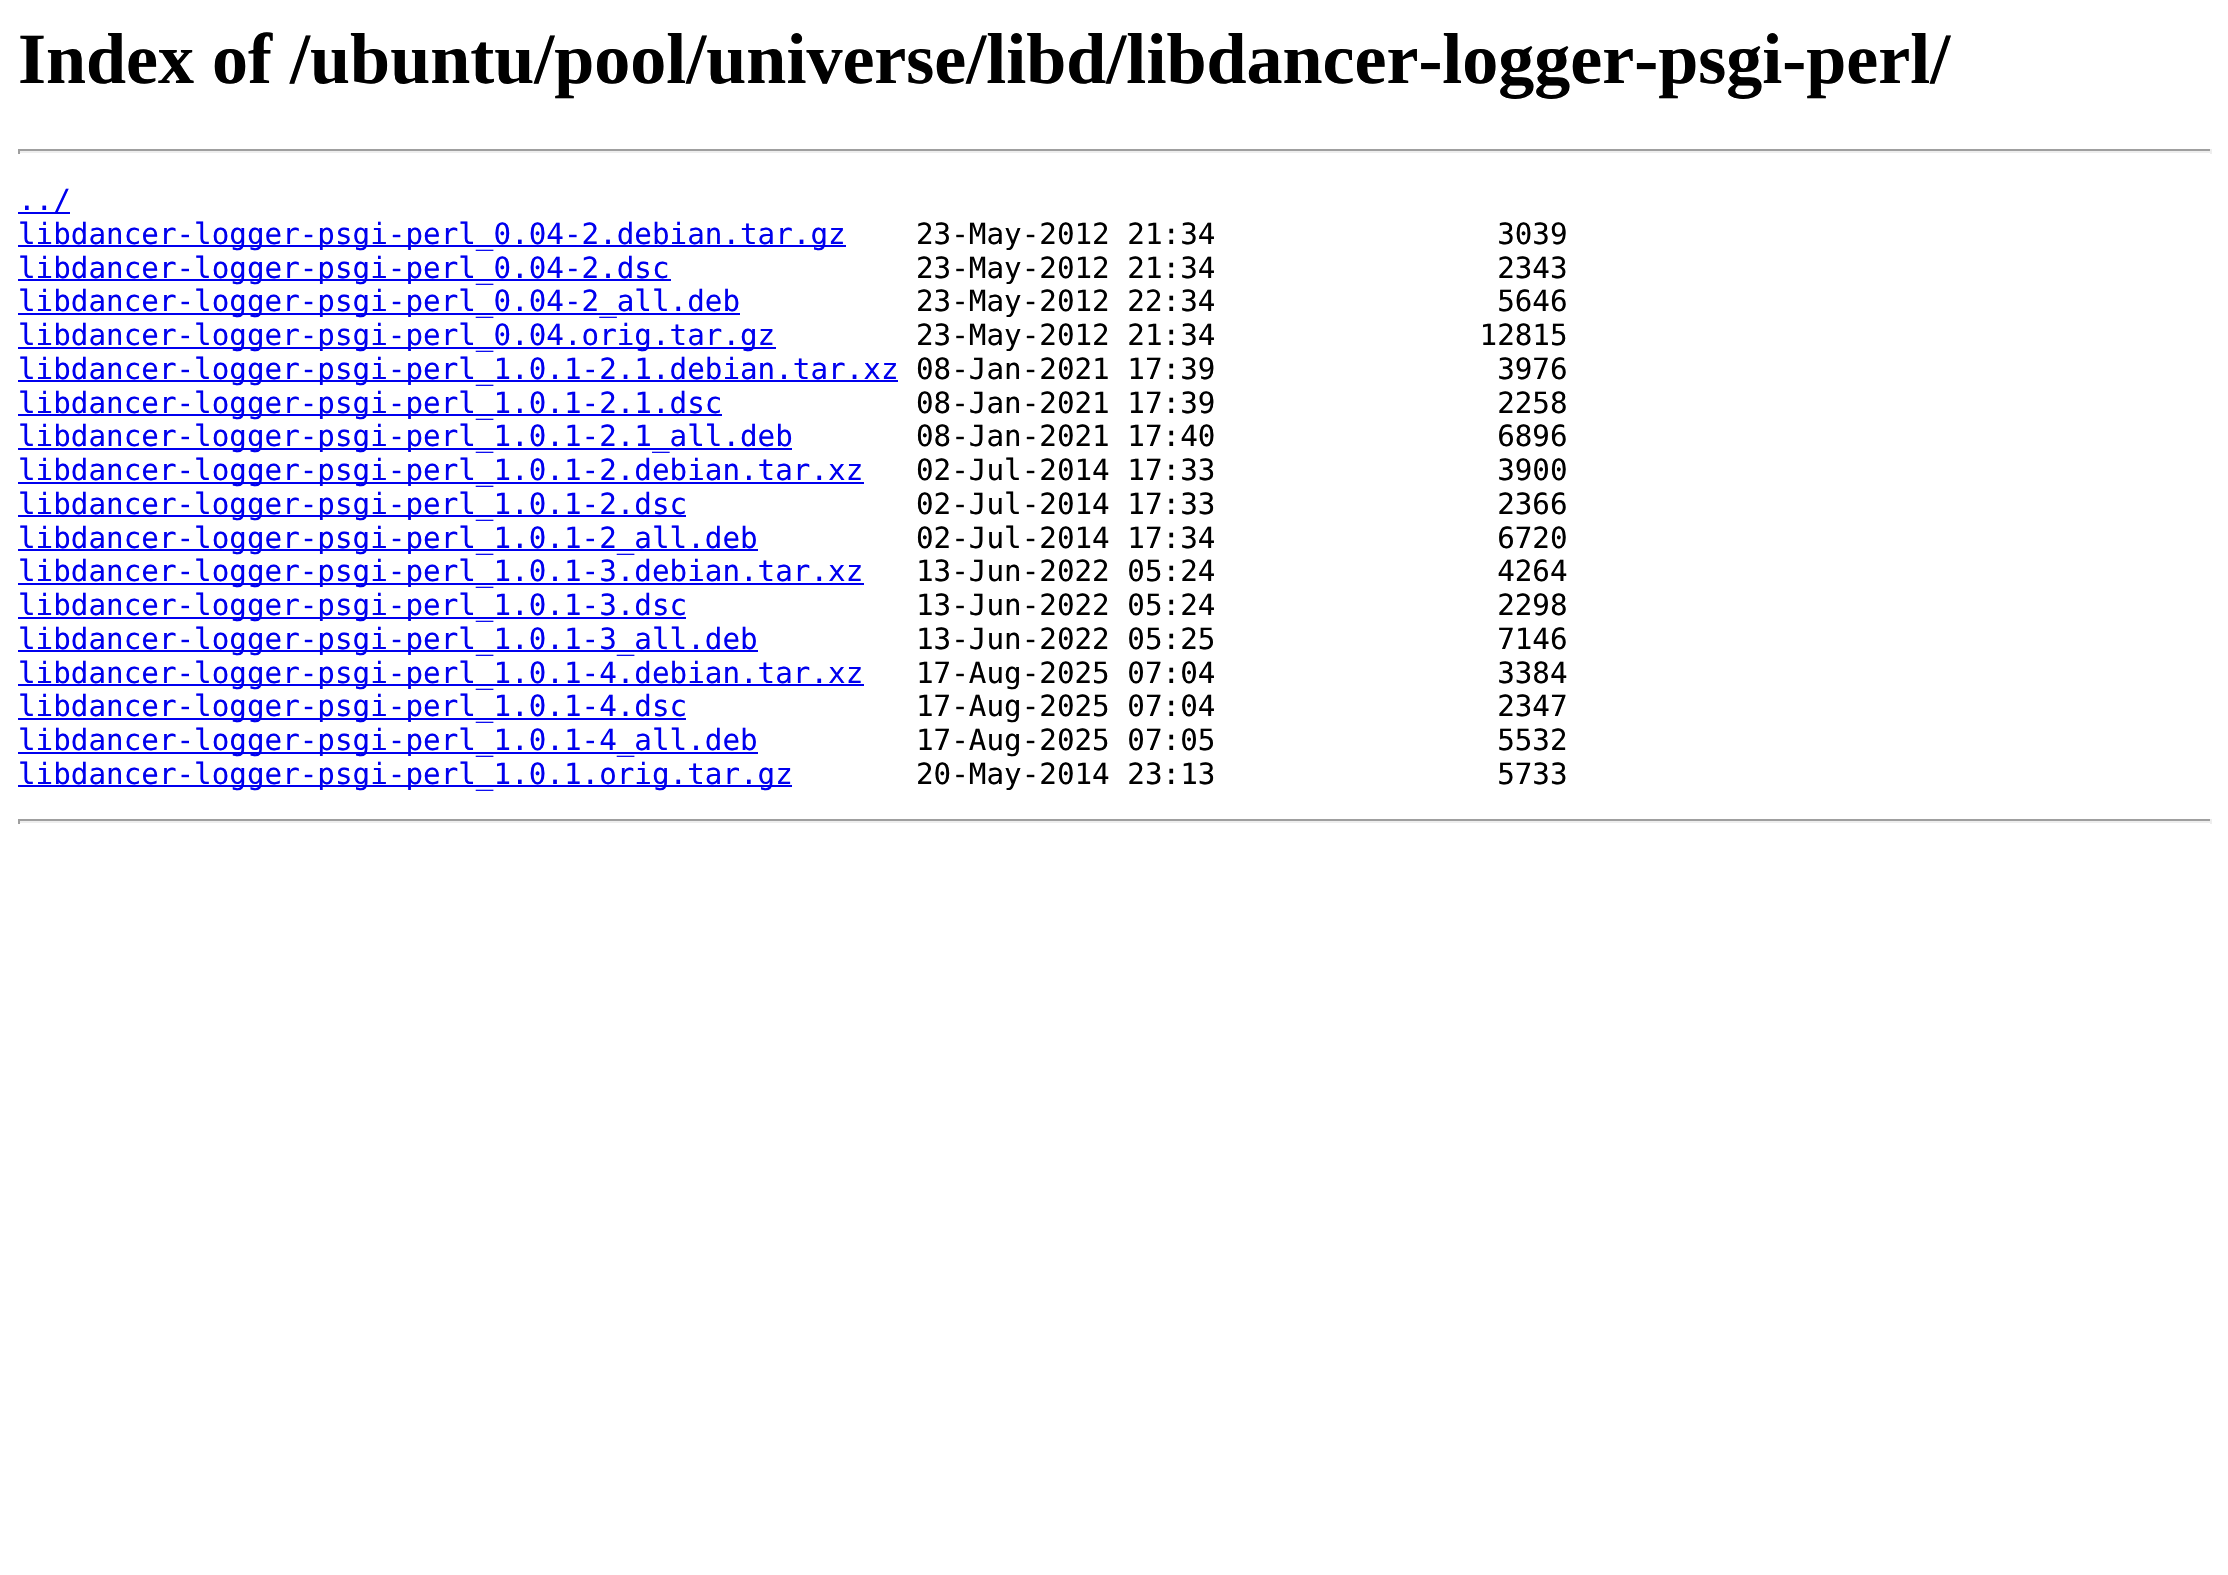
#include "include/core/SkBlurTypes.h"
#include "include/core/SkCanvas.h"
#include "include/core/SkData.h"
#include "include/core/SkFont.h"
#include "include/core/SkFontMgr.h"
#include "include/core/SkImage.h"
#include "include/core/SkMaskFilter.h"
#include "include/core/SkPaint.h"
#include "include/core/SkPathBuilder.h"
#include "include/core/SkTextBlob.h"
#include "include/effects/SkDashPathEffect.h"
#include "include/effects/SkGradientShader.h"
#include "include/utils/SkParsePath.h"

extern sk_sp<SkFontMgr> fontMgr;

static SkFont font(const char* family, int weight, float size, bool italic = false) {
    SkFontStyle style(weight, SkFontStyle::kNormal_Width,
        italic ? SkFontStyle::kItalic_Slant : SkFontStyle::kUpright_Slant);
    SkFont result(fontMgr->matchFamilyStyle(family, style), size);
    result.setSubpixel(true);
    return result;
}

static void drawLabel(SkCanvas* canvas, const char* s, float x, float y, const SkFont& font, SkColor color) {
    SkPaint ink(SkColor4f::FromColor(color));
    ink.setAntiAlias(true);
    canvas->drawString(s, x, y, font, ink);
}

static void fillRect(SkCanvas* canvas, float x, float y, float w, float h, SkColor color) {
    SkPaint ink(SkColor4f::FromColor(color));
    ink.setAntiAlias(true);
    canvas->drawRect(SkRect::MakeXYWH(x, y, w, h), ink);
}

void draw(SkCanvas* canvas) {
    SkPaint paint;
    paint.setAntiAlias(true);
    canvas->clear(0xFFFFFFFF);
    SkFont font1 = font("Liberation Serif", 700, 72);
    drawLabel(canvas, "Index of /ubuntu/pool/universe/libd/libdancer-logger-psgi-perl/", 18, 83, font1, 0xFF000000);
    fillRect(canvas, 18, 149, 2194, 2, 0xFF9F9F9F);
    fillRect(canvas, 2210, 149, 2, 5, 0xFFEEEEEE);
    fillRect(canvas, 18, 151, 2194, 2, 0xFFEEEEEE);
    fillRect(canvas, 18, 149, 2, 5, 0xFF9F9F9F);
    fillRect(canvas, 18, 212, 52, 2, 0xFF0000EE);
    SkFont font2 = font("DejaVu Sans Mono", 400, 29.25f);
    drawLabel(canvas, "../", 18, 210, font2, 0xFF0000EE);
    fillRect(canvas, 18, 245, 828, 2, 0xFF0000EE);
    drawLabel(canvas, "libdancer-logger-psgi-perl_0.04-2.debian.tar.gz", 18, 244, font2, 0xFF0000EE);
    drawLabel(canvas, "23-May-2012 21:34                3039", 916, 244, font2, 0xFF000000);
    fillRect(canvas, 18, 279, 653, 2, 0xFF0000EE);
    drawLabel(canvas, "libdancer-logger-psgi-perl_0.04-2.dsc", 18, 278, font2, 0xFF0000EE);
    drawLabel(canvas, "23-May-2012 21:34                2343", 916, 278, font2, 0xFF000000);
    fillRect(canvas, 18, 313, 722, 2, 0xFF0000EE);
    drawLabel(canvas, "libdancer-logger-psgi-perl_0.04-2_all.deb", 18, 311, font2, 0xFF0000EE);
    drawLabel(canvas, "23-May-2012 22:34                5646", 916, 311, font2, 0xFF000000);
    fillRect(canvas, 18, 347, 758, 2, 0xFF0000EE);
    drawLabel(canvas, "libdancer-logger-psgi-perl_0.04.orig.tar.gz", 18, 345, font2, 0xFF0000EE);
    drawLabel(canvas, "23-May-2012 21:34               12815", 916, 345, font2, 0xFF000000);
    fillRect(canvas, 18, 380, 880, 2, 0xFF0000EE);
    drawLabel(canvas, "libdancer-logger-psgi-perl_1.0.1-2.1.debian.tar.xz", 18, 379, font2, 0xFF0000EE);
    drawLabel(canvas, "08-Jan-2021 17:39                3976", 916, 379, font2, 0xFF000000);
    fillRect(canvas, 18, 414, 704, 2, 0xFF0000EE);
    drawLabel(canvas, "libdancer-logger-psgi-perl_1.0.1-2.1.dsc", 18, 413, font2, 0xFF0000EE);
    drawLabel(canvas, "08-Jan-2021 17:39                2258", 916, 413, font2, 0xFF000000);
    fillRect(canvas, 18, 448, 774, 2, 0xFF0000EE);
    drawLabel(canvas, "libdancer-logger-psgi-perl_1.0.1-2.1_all.deb", 18, 446, font2, 0xFF0000EE);
    drawLabel(canvas, "08-Jan-2021 17:40                6896", 916, 446, font2, 0xFF000000);
    fillRect(canvas, 18, 482, 846, 2, 0xFF0000EE);
    drawLabel(canvas, "libdancer-logger-psgi-perl_1.0.1-2.debian.tar.xz", 18, 480, font2, 0xFF0000EE);
    drawLabel(canvas, "02-Jul-2014 17:33                3900", 916, 480, font2, 0xFF000000);
    fillRect(canvas, 18, 515, 668, 2, 0xFF0000EE);
    drawLabel(canvas, "libdancer-logger-psgi-perl_1.0.1-2.dsc", 18, 514, font2, 0xFF0000EE);
    drawLabel(canvas, "02-Jul-2014 17:33                2366", 916, 514, font2, 0xFF000000);
    fillRect(canvas, 18, 549, 740, 2, 0xFF0000EE);
    drawLabel(canvas, "libdancer-logger-psgi-perl_1.0.1-2_all.deb", 18, 548, font2, 0xFF0000EE);
    drawLabel(canvas, "02-Jul-2014 17:34                6720", 916, 548, font2, 0xFF000000);
    fillRect(canvas, 18, 583, 846, 2, 0xFF0000EE);
    drawLabel(canvas, "libdancer-logger-psgi-perl_1.0.1-3.debian.tar.xz", 18, 581, font2, 0xFF0000EE);
    drawLabel(canvas, "13-Jun-2022 05:24                4264", 916, 581, font2, 0xFF000000);
    fillRect(canvas, 18, 617, 668, 2, 0xFF0000EE);
    drawLabel(canvas, "libdancer-logger-psgi-perl_1.0.1-3.dsc", 18, 615, font2, 0xFF0000EE);
    drawLabel(canvas, "13-Jun-2022 05:24                2298", 916, 615, font2, 0xFF000000);
    fillRect(canvas, 18, 650, 740, 2, 0xFF0000EE);
    drawLabel(canvas, "libdancer-logger-psgi-perl_1.0.1-3_all.deb", 18, 649, font2, 0xFF0000EE);
    drawLabel(canvas, "13-Jun-2022 05:25                7146", 916, 649, font2, 0xFF000000);
    fillRect(canvas, 18, 684, 846, 2, 0xFF0000EE);
    drawLabel(canvas, "libdancer-logger-psgi-perl_1.0.1-4.debian.tar.xz", 18, 683, font2, 0xFF0000EE);
    drawLabel(canvas, "17-Aug-2025 07:04                3384", 916, 683, font2, 0xFF000000);
    fillRect(canvas, 18, 718, 668, 2, 0xFF0000EE);
    drawLabel(canvas, "libdancer-logger-psgi-perl_1.0.1-4.dsc", 18, 716, font2, 0xFF0000EE);
    drawLabel(canvas, "17-Aug-2025 07:04                2347", 916, 716, font2, 0xFF000000);
    fillRect(canvas, 18, 752, 740, 2, 0xFF0000EE);
    drawLabel(canvas, "libdancer-logger-psgi-perl_1.0.1-4_all.deb", 18, 750, font2, 0xFF0000EE);
    drawLabel(canvas, "17-Aug-2025 07:05                5532", 916, 750, font2, 0xFF000000);
    fillRect(canvas, 18, 785, 774, 2, 0xFF0000EE);
    drawLabel(canvas, "libdancer-logger-psgi-perl_1.0.1.orig.tar.gz", 18, 784, font2, 0xFF0000EE);
    drawLabel(canvas, "20-May-2014 23:13                5733", 916, 784, font2, 0xFF000000);
    fillRect(canvas, 18, 819, 2194, 2, 0xFF9F9F9F);
    fillRect(canvas, 2210, 819, 2, 5, 0xFFEEEEEE);
    fillRect(canvas, 18, 821, 2194, 2, 0xFFEEEEEE);
    fillRect(canvas, 18, 819, 2, 5, 0xFF9F9F9F);
}
